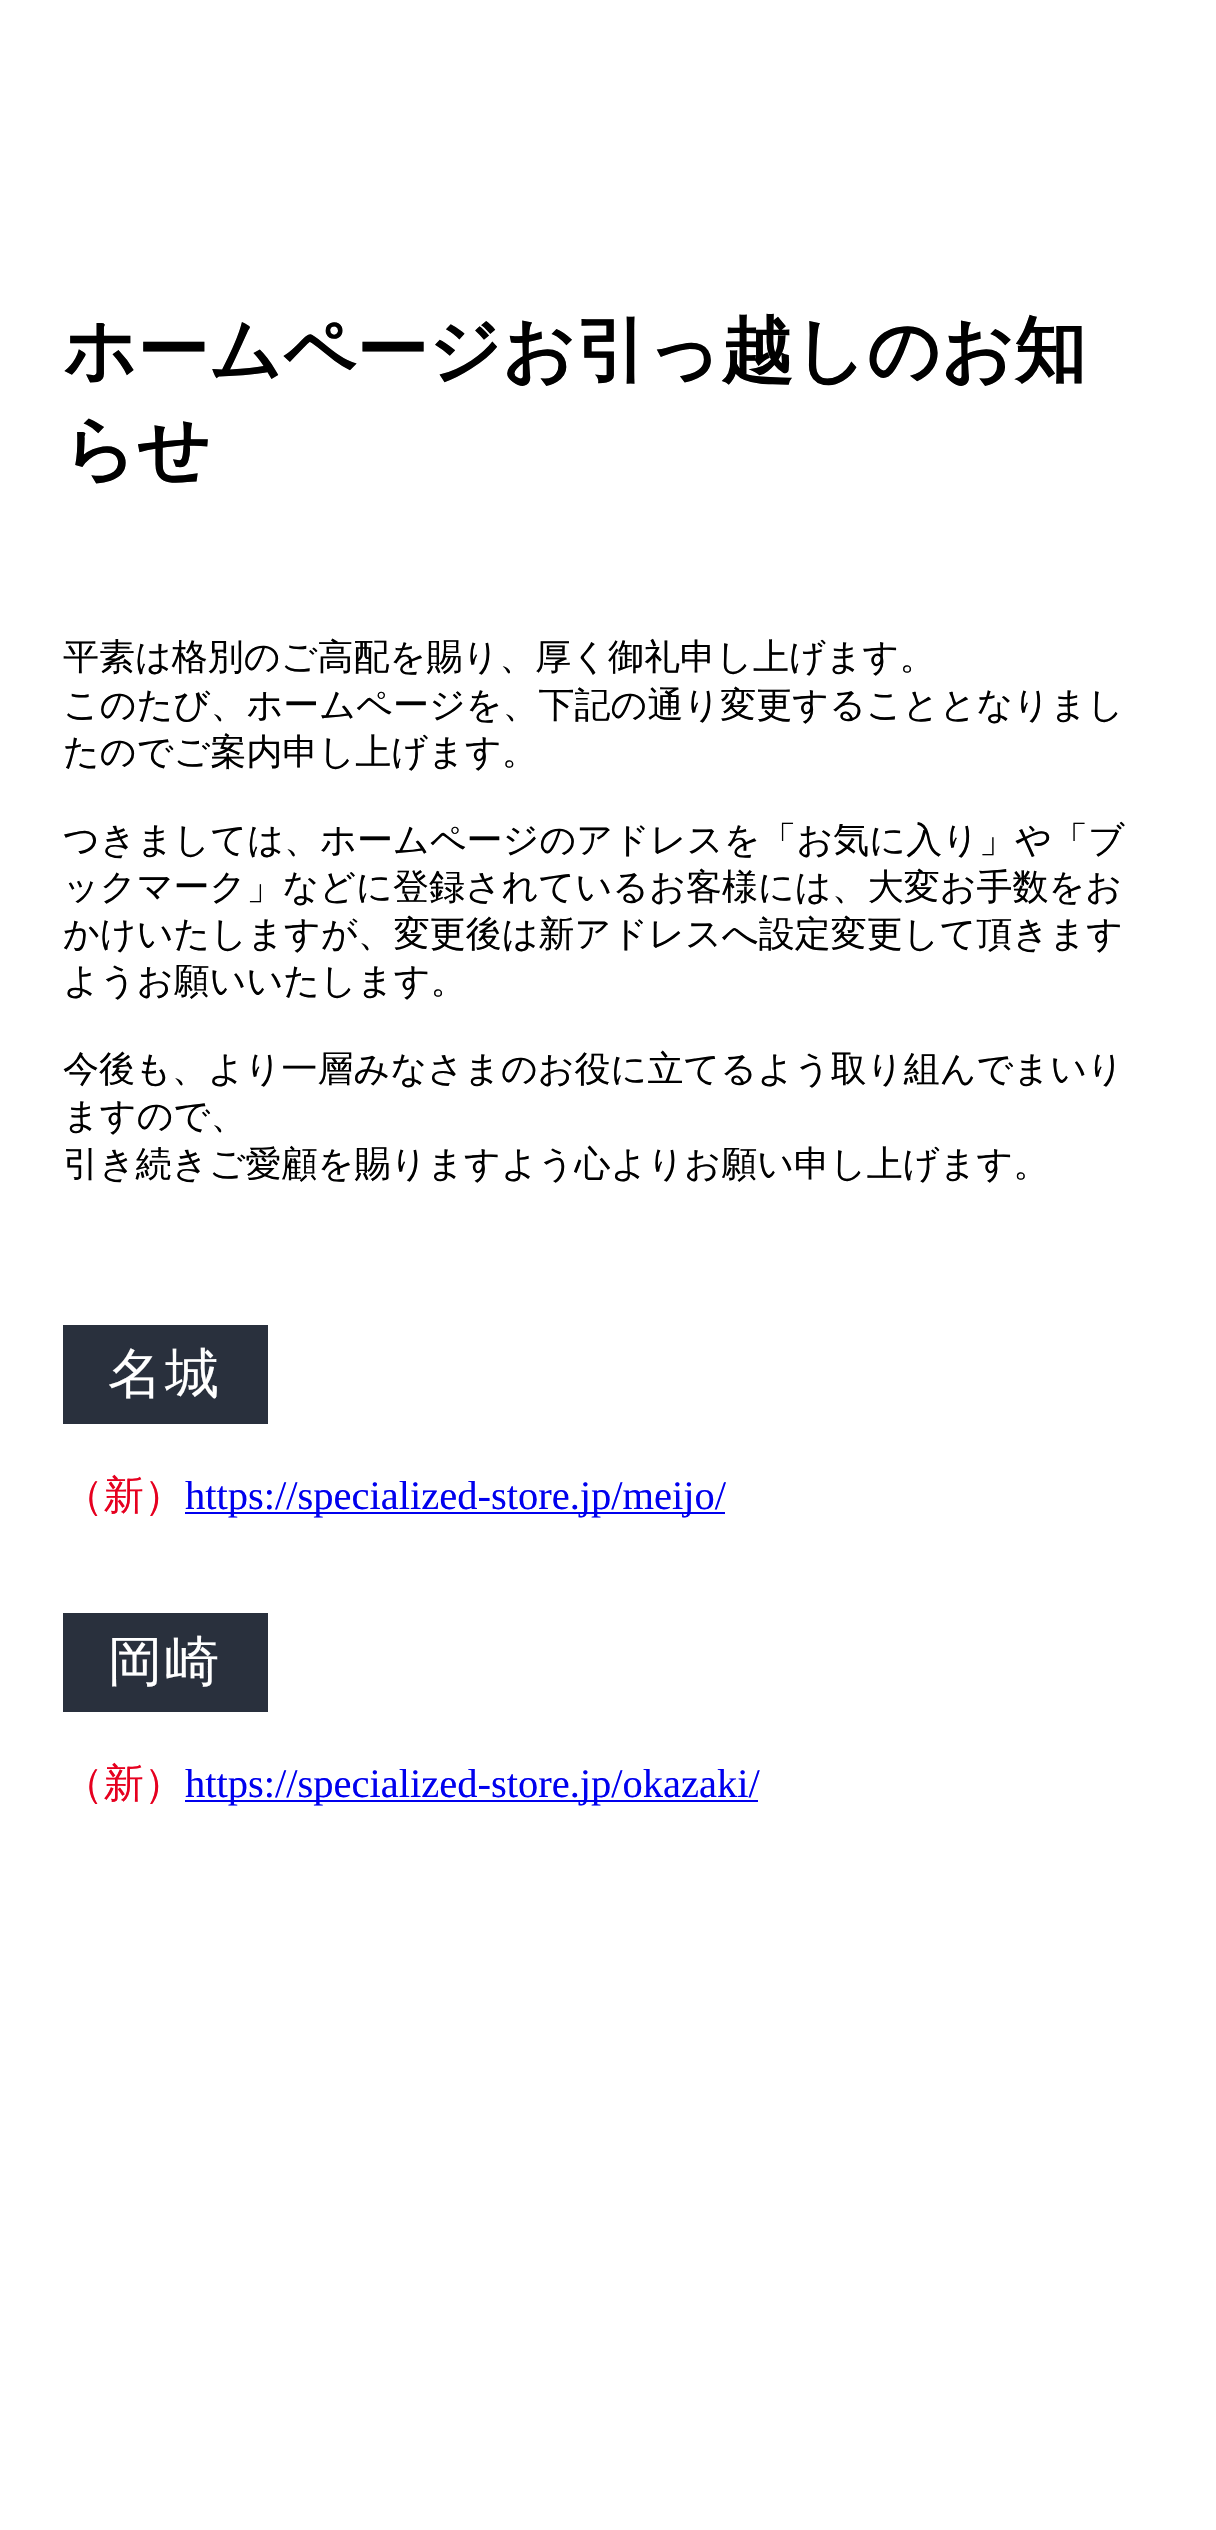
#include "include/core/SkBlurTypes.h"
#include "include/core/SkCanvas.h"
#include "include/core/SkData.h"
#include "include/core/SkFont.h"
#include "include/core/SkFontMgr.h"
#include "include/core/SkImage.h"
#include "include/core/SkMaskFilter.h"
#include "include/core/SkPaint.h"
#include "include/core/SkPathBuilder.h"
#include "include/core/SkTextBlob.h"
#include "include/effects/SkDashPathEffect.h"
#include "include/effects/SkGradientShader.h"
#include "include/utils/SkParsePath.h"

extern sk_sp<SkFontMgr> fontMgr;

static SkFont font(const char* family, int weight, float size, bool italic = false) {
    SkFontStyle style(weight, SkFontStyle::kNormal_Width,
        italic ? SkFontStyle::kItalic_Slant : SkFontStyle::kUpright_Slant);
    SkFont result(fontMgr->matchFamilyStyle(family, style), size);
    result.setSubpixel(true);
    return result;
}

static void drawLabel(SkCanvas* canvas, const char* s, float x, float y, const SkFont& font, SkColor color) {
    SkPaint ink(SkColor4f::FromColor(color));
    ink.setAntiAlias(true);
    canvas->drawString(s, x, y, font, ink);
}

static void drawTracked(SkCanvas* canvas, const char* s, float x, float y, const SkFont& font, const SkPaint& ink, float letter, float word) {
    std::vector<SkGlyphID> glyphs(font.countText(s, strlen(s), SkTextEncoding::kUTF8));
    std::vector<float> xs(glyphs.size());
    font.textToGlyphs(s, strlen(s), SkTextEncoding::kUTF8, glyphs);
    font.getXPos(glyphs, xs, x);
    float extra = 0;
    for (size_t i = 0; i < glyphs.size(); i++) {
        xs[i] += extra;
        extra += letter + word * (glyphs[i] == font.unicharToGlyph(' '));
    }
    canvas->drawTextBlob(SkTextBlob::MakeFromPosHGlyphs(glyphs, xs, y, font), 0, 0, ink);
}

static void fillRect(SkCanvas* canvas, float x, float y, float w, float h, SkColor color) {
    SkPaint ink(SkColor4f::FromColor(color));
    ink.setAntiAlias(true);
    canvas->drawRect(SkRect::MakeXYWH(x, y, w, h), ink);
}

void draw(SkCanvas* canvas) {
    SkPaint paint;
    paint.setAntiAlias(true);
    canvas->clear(0xFFFFFFFF);
    SkFont font1 = font("WenQuanYi Zen Hei", 700, 72);
    drawLabel(canvas, "ホームページお引っ越しのお知", 63, 375, font1, 0xFF000000);
    drawLabel(canvas, "らせ", 63, 474, font1, 0xFF000000);
    SkFont font2 = font("WenQuanYi Zen Hei", 500, 36);
    drawLabel(canvas, "平素は格別のご高配を賜り、厚く御礼申し上げます。", 63, 669, font2, 0xFF000000);
    drawLabel(canvas, "このたび、ホームページを、下記の通り変更することとなりまし", 63, 717, font2, 0xFF000000);
    drawLabel(canvas, "たのでご案内申し上げます。", 63, 764, font2, 0xFF000000);
    drawLabel(canvas, "つきましては、ホームページのアドレスを「お気に入り」や「ブ", 63, 852, font2, 0xFF000000);
    drawLabel(canvas, "ックマーク」などに登録されているお客様には、大変お手数をお", 63, 899, font2, 0xFF000000);
    drawLabel(canvas, "かけいたしますが、変更後は新アドレスへ設定変更して頂きます", 63, 946, font2, 0xFF000000);
    drawLabel(canvas, "ようお願いいたします。", 63, 993, font2, 0xFF000000);
    drawLabel(canvas, "今後も、より一層みなさまのお役に立てるよう取り組んでまいり", 63, 1081, font2, 0xFF000000);
    drawLabel(canvas, "ますので、", 63, 1128, font2, 0xFF000000);
    drawLabel(canvas, "引き続きご愛顧を賜りますよう心よりお願い申し上げます。", 63, 1176, font2, 0xFF000000);
    fillRect(canvas, 63, 1325, 205, 99, 0xFF29303D);
    SkFont font3 = font("WenQuanYi Zen Hei", 500, 54);
    paint.setColor(0xFFFFFFFF);
    drawTracked(canvas, "名城", 108, 1392, font3, paint, 3, 0);
    SkFont font4 = font("WenQuanYi Zen Hei", 500, 40.5f);
    drawLabel(canvas, "（新）", 63, 1509, font4, 0xFFE6001F);
    fillRect(canvas, 185, 1512, 540, 2, 0xFF0000EE);
    SkFont font5 = font("Liberation Serif", 400, 40.5f);
    drawLabel(canvas, "https://specialized-store.jp/meijo/", 185, 1509, font5, 0xFF0000EE);
    fillRect(canvas, 63, 1613, 205, 99, 0xFF29303D);
    drawTracked(canvas, "岡崎", 108, 1680, font3, paint, 3, 0);
    drawLabel(canvas, "（新）", 63, 1797, font4, 0xFFE6001F);
    fillRect(canvas, 185, 1800, 573, 2, 0xFF0000EE);
    drawLabel(canvas, "https://specialized-store.jp/okazaki/", 185, 1797, font5, 0xFF0000EE);
}
